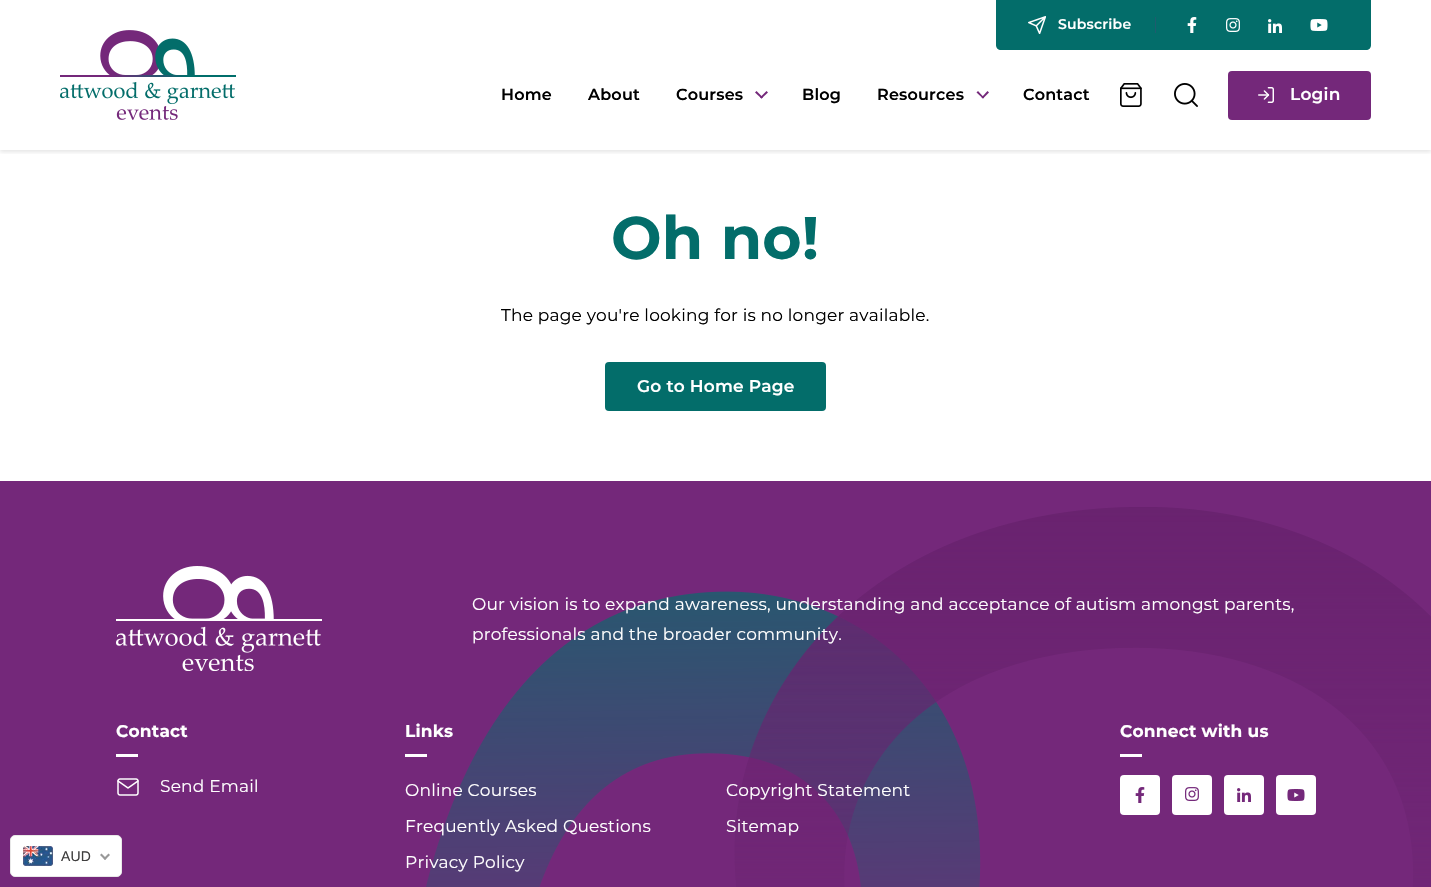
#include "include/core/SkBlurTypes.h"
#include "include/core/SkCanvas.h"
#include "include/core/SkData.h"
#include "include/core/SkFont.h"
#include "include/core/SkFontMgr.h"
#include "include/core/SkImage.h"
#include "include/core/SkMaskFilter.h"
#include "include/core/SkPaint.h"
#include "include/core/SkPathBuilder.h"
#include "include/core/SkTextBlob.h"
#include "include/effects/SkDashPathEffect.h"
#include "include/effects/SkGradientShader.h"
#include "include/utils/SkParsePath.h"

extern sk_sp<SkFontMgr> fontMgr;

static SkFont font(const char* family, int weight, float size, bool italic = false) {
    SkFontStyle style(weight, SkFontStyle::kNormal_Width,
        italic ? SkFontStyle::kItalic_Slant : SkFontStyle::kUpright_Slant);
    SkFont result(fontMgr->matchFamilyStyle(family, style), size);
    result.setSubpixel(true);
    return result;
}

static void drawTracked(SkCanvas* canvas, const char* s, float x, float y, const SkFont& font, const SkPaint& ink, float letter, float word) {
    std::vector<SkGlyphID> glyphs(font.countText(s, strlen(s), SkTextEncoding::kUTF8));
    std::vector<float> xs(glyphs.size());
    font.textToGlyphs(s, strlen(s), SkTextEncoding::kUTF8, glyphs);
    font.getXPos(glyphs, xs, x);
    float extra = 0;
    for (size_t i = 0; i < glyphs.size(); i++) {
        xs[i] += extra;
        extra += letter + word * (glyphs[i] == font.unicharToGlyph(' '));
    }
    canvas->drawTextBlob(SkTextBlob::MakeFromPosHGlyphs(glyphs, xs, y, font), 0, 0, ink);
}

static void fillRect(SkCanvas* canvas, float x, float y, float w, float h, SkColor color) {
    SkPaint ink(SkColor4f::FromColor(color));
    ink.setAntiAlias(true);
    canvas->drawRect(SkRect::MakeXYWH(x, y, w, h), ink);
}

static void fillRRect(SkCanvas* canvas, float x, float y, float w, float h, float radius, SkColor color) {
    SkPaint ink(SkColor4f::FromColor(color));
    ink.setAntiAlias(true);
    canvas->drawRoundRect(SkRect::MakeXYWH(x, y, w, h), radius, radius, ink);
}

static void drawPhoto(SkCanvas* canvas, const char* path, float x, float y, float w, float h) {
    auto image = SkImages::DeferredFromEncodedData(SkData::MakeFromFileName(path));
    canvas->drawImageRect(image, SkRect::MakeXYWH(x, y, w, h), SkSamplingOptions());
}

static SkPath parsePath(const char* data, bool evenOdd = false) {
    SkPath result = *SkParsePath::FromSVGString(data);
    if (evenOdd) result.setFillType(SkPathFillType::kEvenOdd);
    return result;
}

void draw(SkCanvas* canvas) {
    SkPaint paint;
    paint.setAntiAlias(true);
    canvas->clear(0xFFFFFFFF);
    canvas->save();
    canvas->clipRect(SkRect::MakeXYWH(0, 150, 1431, 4));
    paint.setColor(0x1A000000);
    paint.setMaskFilter(SkMaskFilter::MakeBlur(kNormal_SkBlurStyle, 2));
    canvas->drawRect(SkRect::MakeXYWH(0, 2, 1431, 150), paint);
    paint.setMaskFilter(nullptr);
    canvas->restore();
    paint.setColor(0xFF036D6A);
    canvas->drawPath(parsePath("M996 0H1371V45C1371 48 1369 50 1366 50H1001C998 50 996 48 996 45Z"), paint);
    drawPhoto(canvas, "assets/img1.png", 1028, 16, 18, 18);
    SkFont font1 = font("Montserrat", 600, 14);
    paint.setColor(0xFFFFFFFF);
    drawTracked(canvas, "Subscribe", 1058, 29, font1, paint, 0.2f, 0);
    fillRect(canvas, 1155, 17, 1, 16, 0xFF1F5C6E);
    drawPhoto(canvas, "assets/img2.png", 1187, 17, 10, 16);
    drawPhoto(canvas, "assets/img3.png", 1226, 18, 14, 14);
    drawPhoto(canvas, "assets/img4.png", 1268, 19, 14, 14);
    drawPhoto(canvas, "assets/img5.png", 1310, 19, 18, 12);
    drawPhoto(canvas, "assets/img6.png", 60, 30, 176, 90);
    SkFont font2 = font("Montserrat", 600, 16);
    paint.setColor(0xFF000000);
    drawTracked(canvas, "Home", 501, 100, font2, paint, 0.2f, 0);
    drawTracked(canvas, "About", 588, 100, font2, paint, 0.2f, 0);
    drawTracked(canvas, "Courses", 676, 100, font2, paint, 0.2f, 0);
    paint.setColor(0xFF74287A);
    canvas->drawPath(parsePath("M766.5 91L768 92.5L761.5 98.5L760 97.5Z"), paint);
    canvas->drawPath(parsePath("M756.5 91L763 97.5L761.5 98.5L755 92.5Z"), paint);
    paint.setColor(0xFF000000);
    drawTracked(canvas, "Blog", 802, 100, font2, paint, 0.2f, 0);
    drawTracked(canvas, "Resources", 877, 100, font2, paint, 0.2f, 0);
    paint.setColor(0xFF74287A);
    canvas->drawPath(parsePath("M987.5 91L989 92.5L983 98.5L981.5 97.5Z"), paint);
    canvas->drawPath(parsePath("M978 91L984 97.5L983 98.5L976.5 92.5Z"), paint);
    paint.setColor(0xFF000000);
    drawTracked(canvas, "Contact", 1023, 100, font2, paint, 0.2f, 0);
    drawPhoto(canvas, "assets/img7.png", 1120, 83, 22, 24);
    drawPhoto(canvas, "assets/img8.png", 1174, 83, 24, 24);
    fillRRect(canvas, 1228, 71, 143, 49, 4, 0xFF74287A);
    drawPhoto(canvas, "assets/img9.png", 1258, 87, 16, 16);
    SkFont font3 = font("Montserrat", 600, 17);
    paint.setColor(0xFFFFFFFF);
    drawTracked(canvas, "Login", 1290, 100, font3, paint, 0.2f, 0);
    SkFont font4 = font("Montserrat", 700, 60);
    paint.setColor(0xFF036D6A);
    drawTracked(canvas, "Oh no!", 611, 259, font4, paint, 0.2f, 0);
    SkFont font5 = font("Montserrat", 400, 17);
    paint.setColor(0xFF000000);
    drawTracked(canvas, "The page you're looking for is no longer available.", 501, 321, font5, paint, 0.2f, 0);
    fillRRect(canvas, 605, 362, 221, 49, 4, 0xFF036D6A);
    paint.setColor(0xFFFFFFFF);
    drawTracked(canvas, "Go to Home Page", 637, 392, font3, paint, 0.2f, 0);
    fillRect(canvas, 0, 481, 1431, 406, 0xFF74287A);
    canvas->drawRoundRect(SkRect::MakeXYWH(10.5f, 835.5f, 111, 41), 4.5f, 4.5f, paint);
    paint.setStroke(true);
    paint.setStrokeWidth(1);
    paint.setColor(0xFFE8E8E8);
    canvas->drawRoundRect(SkRect::MakeXYWH(10.5f, 835.5f, 111, 41), 4.5f, 4.5f, paint);
    drawPhoto(canvas, "assets/img10.png", 23, 846, 30, 20);
    SkFont font6 = font("Liberation Sans", 400, 14);
    paint.setStroke(false);
    paint.setColor(0xFF403F3F);
    drawTracked(canvas, "AUD", 61, 861, font6, paint, 0.2f, 0);
    paint.setColor(0xFF999999);
    canvas->drawPath(parsePath("M108.5 853.5L110 855L105 860L103.5 858.5Z"), paint);
    canvas->drawPath(parsePath("M101.5 853.5L106.5 858.5L105 860L100 855Z"), paint);
    drawPhoto(canvas, "assets/img11.png", 426, 507, 1005, 380);
    drawPhoto(canvas, "assets/img12.png", 116, 566, 206, 105);
    paint.setColor(0xFFFFFFFF);
    drawTracked(canvas, "Our vision is to expand awareness, understanding and acceptance of autism amongst parents,", 472, 610, font5, paint, 0.2f, 0);
    drawTracked(canvas, "professionals and the broader community.", 472, 640, font5, paint, 0.2f, 0);
    SkFont font7 = font("Montserrat", 700, 17);
    drawTracked(canvas, "Contact", 116, 737, font7, paint, 0.2f, 0);
    fillRect(canvas, 116, 754, 22, 3, 0xFFFFFFFF);
    drawPhoto(canvas, "assets/img13.png", 117, 778, 22, 18);
    drawTracked(canvas, "Send Email", 160, 792, font5, paint, 0.2f, 0);
    drawTracked(canvas, "Links", 405, 737, font7, paint, 0.2f, 0);
    fillRect(canvas, 405, 754, 22, 3, 0xFFFFFFFF);
    drawTracked(canvas, "Online Courses", 405, 796, font5, paint, 0.2f, 0);
    drawTracked(canvas, "Copyright Statement", 726, 796, font5, paint, 0.2f, 0);
    drawTracked(canvas, "Frequently Asked Questions", 405, 832, font5, paint, 0.2f, 0);
    drawTracked(canvas, "Sitemap", 726, 832, font5, paint, 0.2f, 0);
    drawTracked(canvas, "Privacy Policy", 405, 868, font5, paint, 0.2f, 0);
    drawTracked(canvas, "Connect with us", 1120, 737, font7, paint, 0.2f, 0);
    fillRect(canvas, 1120, 754, 22, 3, 0xFFFFFFFF);
    fillRRect(canvas, 1120, 775, 40, 40, 4, 0xFFFFFFFF);
    drawPhoto(canvas, "assets/img14.png", 1135, 787, 10, 16);
    fillRRect(canvas, 1172, 775, 40, 40, 4, 0xFFFFFFFF);
    drawPhoto(canvas, "assets/img15.png", 1185, 787, 14, 14);
    fillRRect(canvas, 1224, 775, 40, 40, 4, 0xFFFFFFFF);
    drawPhoto(canvas, "assets/img16.png", 1237, 788, 14, 14);
    fillRRect(canvas, 1276, 775, 40, 40, 4, 0xFFFFFFFF);
    drawPhoto(canvas, "assets/img17.png", 1287, 789, 18, 12);
}
